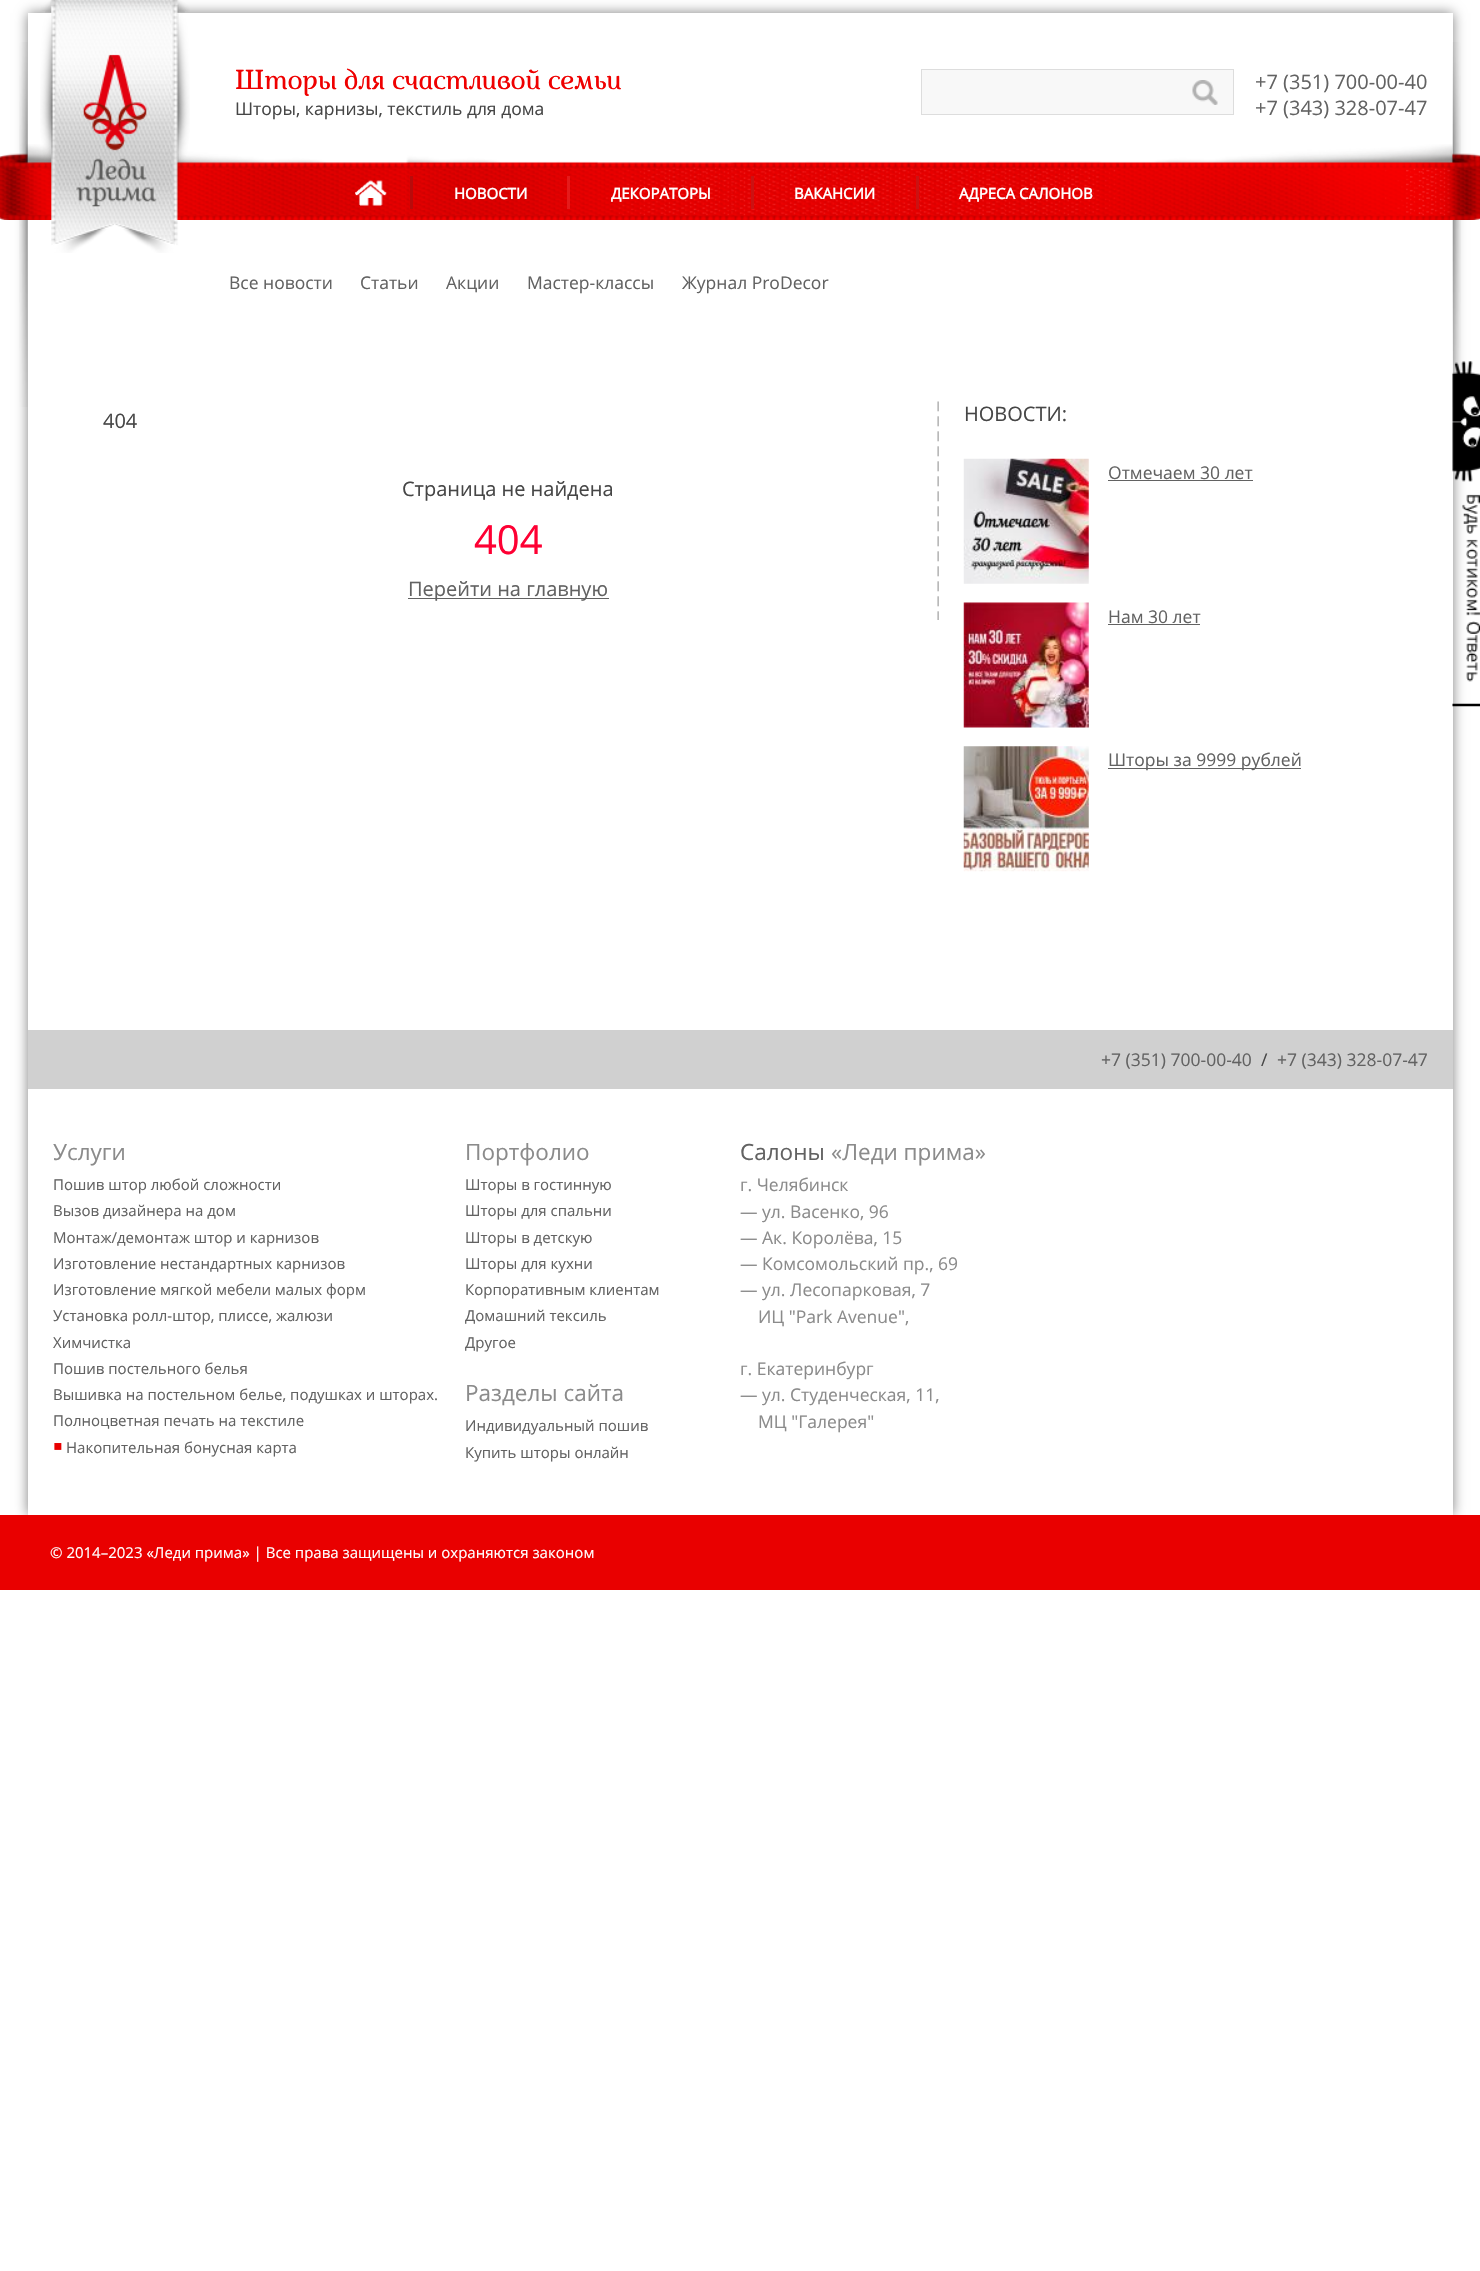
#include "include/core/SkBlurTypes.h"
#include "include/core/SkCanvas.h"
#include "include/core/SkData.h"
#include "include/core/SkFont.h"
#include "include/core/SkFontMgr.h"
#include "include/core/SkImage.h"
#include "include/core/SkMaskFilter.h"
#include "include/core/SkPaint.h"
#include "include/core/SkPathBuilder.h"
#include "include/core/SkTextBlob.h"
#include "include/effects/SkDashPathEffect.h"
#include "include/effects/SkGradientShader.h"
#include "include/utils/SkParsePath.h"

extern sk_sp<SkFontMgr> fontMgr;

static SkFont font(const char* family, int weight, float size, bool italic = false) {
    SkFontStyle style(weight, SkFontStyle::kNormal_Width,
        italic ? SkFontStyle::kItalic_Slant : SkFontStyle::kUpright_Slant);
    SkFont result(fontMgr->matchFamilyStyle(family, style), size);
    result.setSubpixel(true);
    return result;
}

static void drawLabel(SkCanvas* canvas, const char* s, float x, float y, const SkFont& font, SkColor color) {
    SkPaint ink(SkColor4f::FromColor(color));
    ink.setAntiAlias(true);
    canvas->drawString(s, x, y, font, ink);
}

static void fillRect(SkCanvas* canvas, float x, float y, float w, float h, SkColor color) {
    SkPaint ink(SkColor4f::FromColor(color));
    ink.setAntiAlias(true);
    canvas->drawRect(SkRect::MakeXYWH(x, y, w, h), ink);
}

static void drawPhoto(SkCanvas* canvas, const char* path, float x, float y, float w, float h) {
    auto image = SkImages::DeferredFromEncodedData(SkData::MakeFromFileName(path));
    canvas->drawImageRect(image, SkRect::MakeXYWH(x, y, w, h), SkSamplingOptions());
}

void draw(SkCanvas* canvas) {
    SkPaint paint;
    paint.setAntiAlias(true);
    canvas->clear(0xFFFFFFFF);
    paint.setColor(0xFF808080);
    paint.setMaskFilter(SkMaskFilter::MakeBlur(kNormal_SkBlurStyle, 6));
    canvas->drawRect(SkRect::MakeXYWH(28, 13, 1425, 1502), paint);
    paint.setMaskFilter(nullptr);
    fillRect(canvas, 28, 13, 1425, 1502, 0xFFFFFFFF);
    drawPhoto(canvas, "assets/img1.png", 19, 42, 9, 365);
    drawPhoto(canvas, "assets/img5.png", 0, 144, 805, 76);
    drawPhoto(canvas, "assets/img2.png", 40, 0, 150, 253);
    SkFont font1 = font("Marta", 400, 27.5f, true);
    drawLabel(canvas, "Шторы для счастливой семьи", 235, 89, font1, 0xFFEF0000);
    SkFont font2 = font("Open Sans", 400, 17.5f);
    drawLabel(canvas, "Шторы, карнизы, текстиль для дома", 235, 115, font2, 0xFF464646);
    fillRect(canvas, 922, 70, 311, 44, 0xFFF8F8F8);
    drawPhoto(canvas, "assets/img3.png", 1192, 80, 26, 25);
    paint.setStroke(true);
    paint.setStrokeWidth(1);
    paint.setColor(0xFFDDDDDD);
    canvas->drawRect(SkRect::MakeXYWH(921.5f, 69.5f, 312, 45), paint);
    SkFont font3 = font("Open Sans", 400, 20);
    drawLabel(canvas, "+7 (351) 700-00-40", 1255, 89, font3, 0xFF626262);
    drawLabel(canvas, "+7 (343) 328-07-47", 1255, 115, font3, 0xFF626262);
    drawPhoto(canvas, "assets/img4.png", 1452, 42, 9, 365);
    drawPhoto(canvas, "assets/img6.png", 805, 144, 675, 76);
    fillRect(canvas, 410, 176, 3, 33, 0xFFB80B0B);
    drawPhoto(canvas, "assets/img7.png", 355, 180, 32, 26);
    fillRect(canvas, 567, 176, 3, 33, 0xFFE51B1B);
    SkFont font4 = font("Open Sans", 700, 15);
    drawLabel(canvas, "НОВОСТИ", 454, 199, font4, 0xFFFFFFFF);
    fillRect(canvas, 751, 176, 3, 33, 0xFFCB1212);
    drawLabel(canvas, "ДЕКОРАТОРЫ", 611, 199, font4, 0xFFFFFFFF);
    fillRect(canvas, 916, 176, 3, 33, 0xFFCB1212);
    drawLabel(canvas, "ВАКАНСИИ", 794, 199, font4, 0xFFFFFFFF);
    drawLabel(canvas, "АДРЕСА САЛОНОВ", 959, 199, font4, 0xFFFFFFFF);
    drawLabel(canvas, "Все новости", 229, 289, font2, 0xFF626262);
    drawLabel(canvas, "Статьи", 360, 289, font2, 0xFF626262);
    drawLabel(canvas, "Акции", 446, 289, font2, 0xFF626262);
    drawLabel(canvas, "Мастер-классы", 527, 289, font2, 0xFF626262);
    drawLabel(canvas, "Журнал ProDecor", 682, 289, font2, 0xFF626262);
    drawPhoto(canvas, "assets/img8.png", 937, 401, 2, 219);
    drawLabel(canvas, "404", 103, 428, font3, 0xFF464646);
    drawLabel(canvas, "Страница не найдена", 402, 496, font3, 0xFF464646);
    SkFont font5 = font("Open Sans", 400, 40);
    drawLabel(canvas, "404", 474, 554, font5, 0xFFFE0033);
    fillRect(canvas, 408, 598, 201, 1, 0xFF626262);
    drawLabel(canvas, "Перейти на главную", 408, 596, font3, 0xFF626262);
    drawLabel(canvas, "НОВОСТИ:", 964, 421, font3, 0xFF464646);
    drawPhoto(canvas, "assets/img9.png", 963, 458, 126, 126);
    drawLabel(canvas, "Отмечаем 30 лет", 1108, 479, font2, 0xFF626262);
    fillRect(canvas, 1108, 480, 145, 1, 0xFF626262);
    drawPhoto(canvas, "assets/img10.png", 963, 602, 126, 126);
    drawLabel(canvas, "Нам 30 лет", 1108, 623, font2, 0xFF626262);
    fillRect(canvas, 1108, 624, 92, 1, 0xFF626262);
    drawPhoto(canvas, "assets/img11.png", 963, 746, 126, 126);
    fillRect(canvas, 1108, 768, 193, 1, 0xFF626262);
    drawLabel(canvas, "Шторы за 9999 рублей", 1108, 766, font2, 0xFF626262);
    drawPhoto(canvas, "assets/img12.png", 1452, 361, 28, 346);
    fillRect(canvas, 28, 1030, 1425, 59, 0xFFD0D0D0);
    drawLabel(canvas, "+7 (351) 700-00-40", 1101, 1066, font2, 0xFF626262);
    drawLabel(canvas, "/", 1261, 1066, font2, 0xFF464646);
    drawLabel(canvas, "+7 (343) 328-07-47", 1277, 1066, font2, 0xFF626262);
    SkFont font6 = font("Open Sans", 400, 22.5f);
    drawLabel(canvas, "Услуги", 53, 1160, font6, 0xFF8B8B8B);
    SkFont font7 = font("Open Sans", 400, 15);
    drawLabel(canvas, "Пошив штор любой сложности", 53, 1190, font7, 0xFF626262);
    drawLabel(canvas, "Вызов дизайнера на дом", 53, 1216, font7, 0xFF626262);
    drawLabel(canvas, "Монтаж/демонтаж штор и карнизов", 53, 1243, font7, 0xFF626262);
    drawLabel(canvas, "Изготовление нестандартных карнизов", 53, 1269, font7, 0xFF626262);
    drawLabel(canvas, "Изготовление мягкой мебели малых форм", 53, 1295, font7, 0xFF626262);
    drawLabel(canvas, "Установка ролл-штор, плиссе, жалюзи", 53, 1321, font7, 0xFF626262);
    drawLabel(canvas, "Химчистка", 53, 1348, font7, 0xFF626262);
    drawLabel(canvas, "Пошив постельного белья", 53, 1374, font7, 0xFF626262);
    drawLabel(canvas, "Вышивка на постельном белье, подушках и шторах.", 53, 1400, font7, 0xFF626262);
    drawLabel(canvas, "Полноцветная печать на текстиле", 53, 1426, font7, 0xFF626262);
    SkFont font8 = font("Liberation Sans", 400, 27.5f);
    drawLabel(canvas, "▪", 53, 1455, font8, 0xFFE90000);
    drawLabel(canvas, "Накопительная бонусная карта", 66, 1453, font7, 0xFF626262);
    drawLabel(canvas, "Портфолио", 465, 1160, font6, 0xFF8B8B8B);
    drawLabel(canvas, "Шторы в гостинную", 465, 1190, font7, 0xFF626262);
    drawLabel(canvas, "Шторы для спальни", 465, 1216, font7, 0xFF626262);
    drawLabel(canvas, "Шторы в детскую", 465, 1243, font7, 0xFF626262);
    drawLabel(canvas, "Шторы для кухни", 465, 1269, font7, 0xFF626262);
    drawLabel(canvas, "Корпоративным клиентам", 465, 1295, font7, 0xFF626262);
    drawLabel(canvas, "Домашний тексиль", 465, 1321, font7, 0xFF626262);
    drawLabel(canvas, "Другое", 465, 1348, font7, 0xFF626262);
    drawLabel(canvas, "Разделы сайта", 465, 1401, font6, 0xFF8B8B8B);
    drawLabel(canvas, "Индивидуальный пошив", 465, 1431, font7, 0xFF626262);
    drawLabel(canvas, "Купить шторы онлайн", 465, 1458, font7, 0xFF626262);
    drawLabel(canvas, "Салоны", 740, 1160, font6, 0xFF626262);
    drawLabel(canvas, "«Леди прима»", 831, 1160, font6, 0xFF8B8B8B);
    drawLabel(canvas, "г. Челябинск", 740, 1191, font2, 0xFF8B8B8B);
    drawLabel(canvas, "— ул. Васенко, 96", 740, 1218, font2, 0xFF8B8B8B);
    drawLabel(canvas, "— Ак. Королёва, 15", 740, 1244, font2, 0xFF8B8B8B);
    drawLabel(canvas, "— Комсомольский пр., 69", 740, 1270, font2, 0xFF8B8B8B);
    drawLabel(canvas, "— ул. Лесопарковая, 7", 740, 1296, font2, 0xFF8B8B8B);
    drawLabel(canvas, "ИЦ \"Park Avenue\",", 758, 1323, font2, 0xFF8B8B8B);
    drawLabel(canvas, "г. Екатеринбург", 740, 1375, font2, 0xFF8B8B8B);
    drawLabel(canvas, "— ул. Студенческая, 11,", 740, 1401, font2, 0xFF8B8B8B);
    drawLabel(canvas, "МЦ \"Галерея\"", 758, 1428, font2, 0xFF8B8B8B);
    fillRect(canvas, 0, 1515, 1480, 75, 0xFFE90000);
    drawLabel(canvas, "© 2014–2023 «Леди прима» | Все права защищены и охраняются законом", 50, 1558, font7, 0xFFFFFFFF);
}
